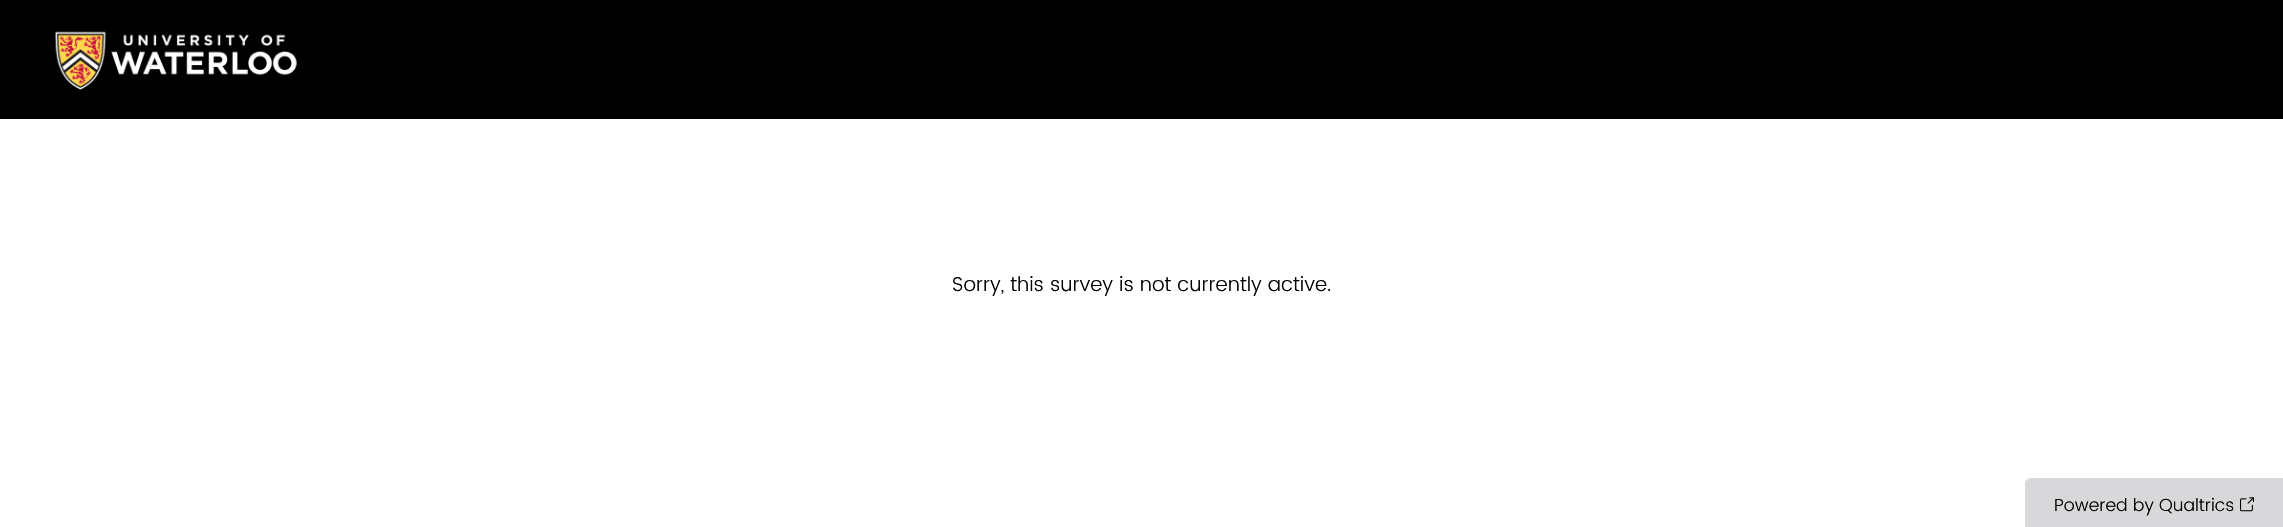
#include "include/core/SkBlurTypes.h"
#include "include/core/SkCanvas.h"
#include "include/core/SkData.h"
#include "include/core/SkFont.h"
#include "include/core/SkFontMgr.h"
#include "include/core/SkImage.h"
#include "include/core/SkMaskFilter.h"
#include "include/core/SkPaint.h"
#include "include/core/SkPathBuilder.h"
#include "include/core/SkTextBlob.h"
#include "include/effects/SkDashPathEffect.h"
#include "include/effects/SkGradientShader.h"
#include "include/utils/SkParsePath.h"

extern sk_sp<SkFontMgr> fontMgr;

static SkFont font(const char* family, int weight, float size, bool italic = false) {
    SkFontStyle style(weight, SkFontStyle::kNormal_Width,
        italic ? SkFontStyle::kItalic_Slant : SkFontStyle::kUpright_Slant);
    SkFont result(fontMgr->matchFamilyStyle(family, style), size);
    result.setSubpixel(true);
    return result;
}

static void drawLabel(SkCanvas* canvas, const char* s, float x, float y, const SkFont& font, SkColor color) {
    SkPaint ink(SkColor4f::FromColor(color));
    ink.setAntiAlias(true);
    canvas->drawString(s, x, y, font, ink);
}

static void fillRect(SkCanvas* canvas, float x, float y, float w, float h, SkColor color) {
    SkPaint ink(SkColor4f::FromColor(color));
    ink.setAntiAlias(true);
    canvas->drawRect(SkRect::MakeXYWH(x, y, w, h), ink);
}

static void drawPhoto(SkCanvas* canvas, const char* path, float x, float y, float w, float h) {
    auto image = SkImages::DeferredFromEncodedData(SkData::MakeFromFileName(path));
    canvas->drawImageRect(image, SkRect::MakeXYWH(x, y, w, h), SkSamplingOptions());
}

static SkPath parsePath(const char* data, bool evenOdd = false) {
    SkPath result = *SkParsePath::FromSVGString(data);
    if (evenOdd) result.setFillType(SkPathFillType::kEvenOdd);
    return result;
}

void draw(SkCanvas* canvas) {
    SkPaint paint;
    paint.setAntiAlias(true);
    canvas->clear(0xFFFFFFFF);
    fillRect(canvas, 0, 0, 2283, 119, 0xFF000000);
    drawPhoto(canvas, "assets/img1.png", 54, 31, 243, 59);
    SkFont font1 = font("Poppins", 300, 20);
    drawLabel(canvas, "Sorry, this survey is not currently active.", 952, 291, font1, 0xFF000000);
    paint.setColor(0xFFD8D8DA);
    canvas->drawPath(parsePath("M2031 478H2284V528H2025V484C2025 480.5 2027.5 478 2031 478Z"), paint);
    SkFont font2 = font("Poppins", 300, 17.5f);
    drawLabel(canvas, "Powered by Qualtrics", 2054, 511, font2, 0xFF000000);
    drawPhoto(canvas, "assets/img2.png", 2240, 497, 14, 15);
}
